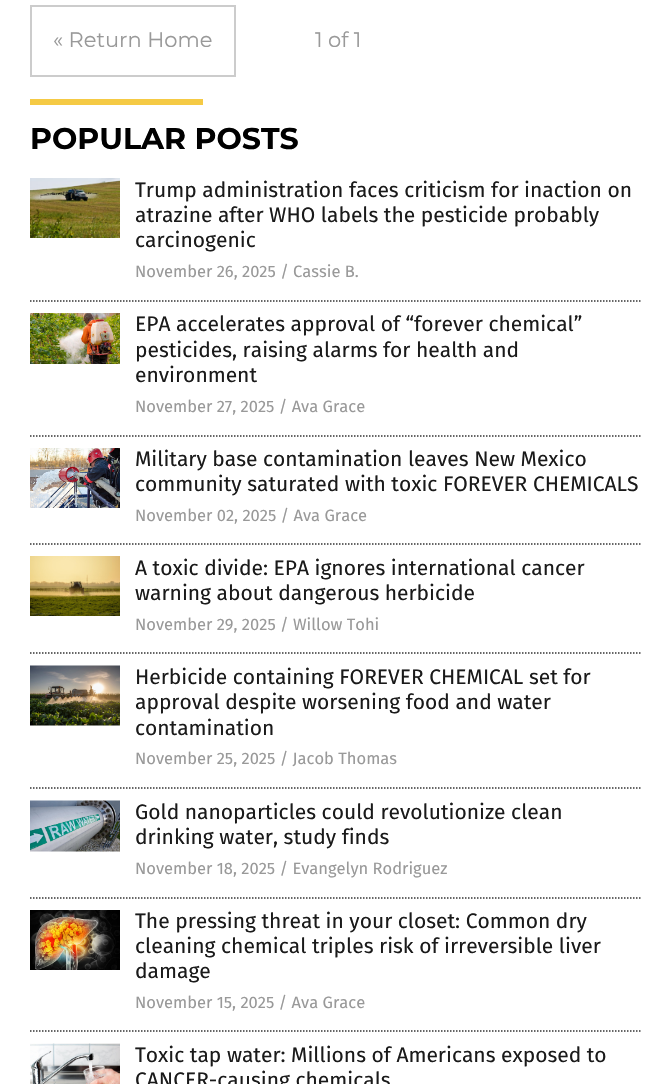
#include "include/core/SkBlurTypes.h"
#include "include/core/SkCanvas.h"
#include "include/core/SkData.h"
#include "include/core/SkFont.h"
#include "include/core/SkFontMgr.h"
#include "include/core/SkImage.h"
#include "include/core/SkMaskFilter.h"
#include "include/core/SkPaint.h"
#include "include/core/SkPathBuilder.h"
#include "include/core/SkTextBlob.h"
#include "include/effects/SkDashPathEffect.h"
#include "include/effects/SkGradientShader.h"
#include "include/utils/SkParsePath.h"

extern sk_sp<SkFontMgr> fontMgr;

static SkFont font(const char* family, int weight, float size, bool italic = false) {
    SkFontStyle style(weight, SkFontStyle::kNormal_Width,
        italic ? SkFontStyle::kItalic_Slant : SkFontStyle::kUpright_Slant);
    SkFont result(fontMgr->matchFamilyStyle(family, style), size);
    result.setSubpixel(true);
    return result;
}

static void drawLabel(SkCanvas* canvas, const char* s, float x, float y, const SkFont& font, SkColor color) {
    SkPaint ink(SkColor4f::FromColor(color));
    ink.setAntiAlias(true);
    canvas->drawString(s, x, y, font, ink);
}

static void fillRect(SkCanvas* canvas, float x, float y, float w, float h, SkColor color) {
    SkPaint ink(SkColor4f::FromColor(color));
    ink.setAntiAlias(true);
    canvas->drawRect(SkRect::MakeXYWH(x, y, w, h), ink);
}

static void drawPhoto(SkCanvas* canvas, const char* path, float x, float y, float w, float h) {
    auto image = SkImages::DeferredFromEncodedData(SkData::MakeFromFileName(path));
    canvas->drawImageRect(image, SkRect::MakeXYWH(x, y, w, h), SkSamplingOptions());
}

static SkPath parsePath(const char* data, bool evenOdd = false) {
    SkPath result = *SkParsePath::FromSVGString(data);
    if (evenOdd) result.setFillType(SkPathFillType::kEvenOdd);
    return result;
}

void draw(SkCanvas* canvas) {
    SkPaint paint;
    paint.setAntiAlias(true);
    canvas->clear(0xFFFFFFFF);
    paint.setStroke(true);
    paint.setStrokeWidth(2);
    paint.setColor(0xFFCCCCCC);
    canvas->drawRect(SkRect::MakeXYWH(31, 6, 204, 70), paint);
    SkFont font1 = font("Montserrat", 400, 21);
    drawLabel(canvas, "« Return Home", 53, 47, font1, 0xFF999999);
    drawLabel(canvas, "1 of 1", 315, 47, font1, 0xFF999999);
    fillRect(canvas, 30, 99, 173, 6, 0xFFF5CA45);
    SkFont font2 = font("Montserrat", 700, 30);
    drawLabel(canvas, "POPULAR POSTS", 30, 149, font2, 0xFF000000);
    paint.setStrokeWidth(1.5f);
    paint.setColor(0xFF343434);
    paint.setPathEffect(SkDashPathEffect::Make({{1.5f, 1.5f}}, 0));
    canvas->drawPath(parsePath("M30 301H642"), paint);
    paint.setPathEffect(nullptr);
    drawPhoto(canvas, "assets/img1.png", 30, 178, 90, 60);
    SkFont font3 = font("Fira Sans", 400, 21);
    drawLabel(canvas, "Trump administration faces criticism for inaction on", 135, 197, font3, 0xFF1A1A1A);
    drawLabel(canvas, "atrazine after WHO labels the pesticide probably", 135, 222, font3, 0xFF1A1A1A);
    drawLabel(canvas, "carcinogenic", 135, 247, font3, 0xFF1A1A1A);
    SkFont font4 = font("Fira Sans", 400, 16.5f);
    drawLabel(canvas, "November 26, 2025 / Cassie B.", 135, 277, font4, 0xFF999999);
    paint.setPathEffect(SkDashPathEffect::Make({{1.5f, 1.5f}}, 0));
    canvas->drawPath(parsePath("M30 436H642"), paint);
    paint.setPathEffect(nullptr);
    drawPhoto(canvas, "assets/img2.png", 30, 313, 90, 51);
    drawLabel(canvas, "EPA accelerates approval of “forever chemical”", 135, 331, font3, 0xFF1A1A1A);
    drawLabel(canvas, "pesticides, raising alarms for health and", 135, 357, font3, 0xFF1A1A1A);
    drawLabel(canvas, "environment", 135, 382, font3, 0xFF1A1A1A);
    drawLabel(canvas, "November 27, 2025 / Ava Grace", 135, 412, font4, 0xFF999999);
    paint.setPathEffect(SkDashPathEffect::Make({{1.5f, 1.5f}}, 0));
    canvas->drawPath(parsePath("M30 544H642"), paint);
    paint.setPathEffect(nullptr);
    drawPhoto(canvas, "assets/img3.png", 30, 448, 90, 60);
    drawLabel(canvas, "Military base contamination leaves New Mexico", 135, 466, font3, 0xFF1A1A1A);
    drawLabel(canvas, "community saturated with toxic FOREVER CHEMICALS", 135, 491, font3, 0xFF1A1A1A);
    drawLabel(canvas, "November 02, 2025 / Ava Grace", 135, 521, font4, 0xFF999999);
    paint.setPathEffect(SkDashPathEffect::Make({{1.5f, 1.5f}}, 0));
    canvas->drawPath(parsePath("M30 653H642"), paint);
    paint.setPathEffect(nullptr);
    drawPhoto(canvas, "assets/img4.png", 30, 556, 90, 60);
    drawLabel(canvas, "A toxic divide: EPA ignores international cancer", 135, 575, font3, 0xFF1A1A1A);
    drawLabel(canvas, "warning about dangerous herbicide", 135, 600, font3, 0xFF1A1A1A);
    drawLabel(canvas, "November 29, 2025 / Willow Tohi", 135, 630, font4, 0xFF999999);
    paint.setPathEffect(SkDashPathEffect::Make({{1.5f, 1.5f}}, 0));
    canvas->drawPath(parsePath("M30 788H642"), paint);
    paint.setPathEffect(nullptr);
    drawPhoto(canvas, "assets/img5.png", 30, 665, 90, 61);
    drawLabel(canvas, "Herbicide containing FOREVER CHEMICAL set for", 135, 684, font3, 0xFF1A1A1A);
    drawLabel(canvas, "approval despite worsening food and water", 135, 709, font3, 0xFF1A1A1A);
    drawLabel(canvas, "contamination", 135, 735, font3, 0xFF1A1A1A);
    drawLabel(canvas, "November 25, 2025 / Jacob Thomas", 135, 764, font4, 0xFF999999);
    paint.setPathEffect(SkDashPathEffect::Make({{1.5f, 1.5f}}, 0));
    canvas->drawPath(parsePath("M30 898H642"), paint);
    paint.setPathEffect(nullptr);
    drawPhoto(canvas, "assets/img6.png", 30, 800, 90, 52);
    drawLabel(canvas, "Gold nanoparticles could revolutionize clean", 135, 819, font3, 0xFF1A1A1A);
    drawLabel(canvas, "drinking water, study finds", 135, 844, font3, 0xFF1A1A1A);
    drawLabel(canvas, "November 18, 2025 / Evangelyn Rodriguez", 135, 874, font4, 0xFF999999);
    paint.setPathEffect(SkDashPathEffect::Make({{1.5f, 1.5f}}, 0));
    canvas->drawPath(parsePath("M30 1031H642"), paint);
    paint.setPathEffect(nullptr);
    drawPhoto(canvas, "assets/img7.png", 30, 910, 90, 60);
    drawLabel(canvas, "The pressing threat in your closet: Common dry", 135, 928, font3, 0xFF1A1A1A);
    drawLabel(canvas, "cleaning chemical triples risk of irreversible liver", 135, 953, font3, 0xFF1A1A1A);
    drawLabel(canvas, "damage", 135, 978, font3, 0xFF1A1A1A);
    drawLabel(canvas, "November 15, 2025 / Ava Grace", 135, 1008, font4, 0xFF999999);
    drawPhoto(canvas, "assets/img8.png", 30, 1043, 90, 41);
    drawLabel(canvas, "Toxic tap water: Millions of Americans exposed to", 135, 1062, font3, 0xFF1A1A1A);
    drawLabel(canvas, "CANCER-causing chemicals", 135, 1087, font3, 0xFF1A1A1A);
}
